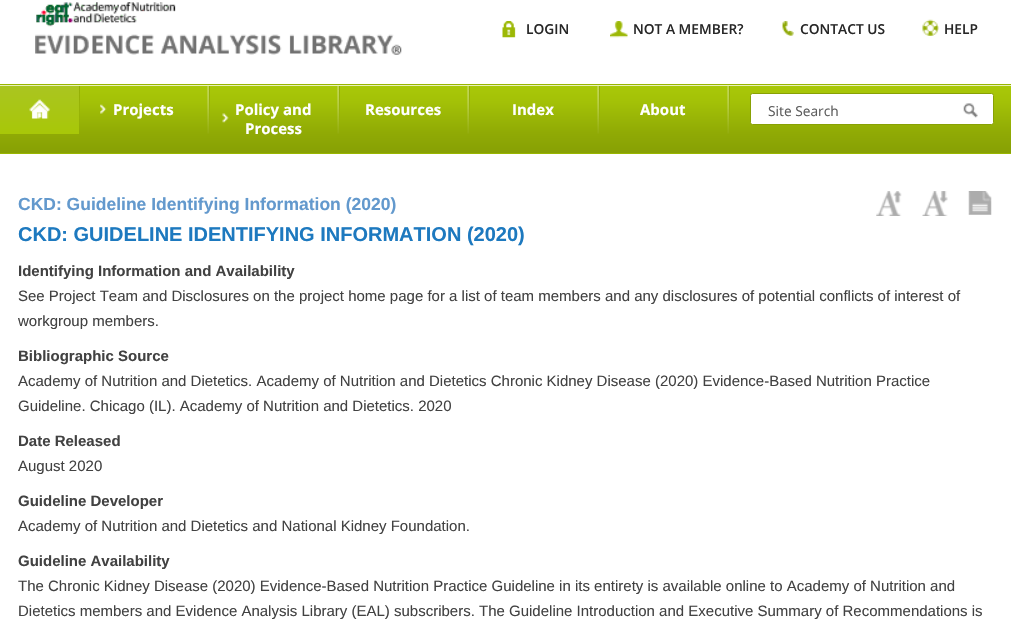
#include "include/core/SkBlurTypes.h"
#include "include/core/SkCanvas.h"
#include "include/core/SkData.h"
#include "include/core/SkFont.h"
#include "include/core/SkFontMgr.h"
#include "include/core/SkImage.h"
#include "include/core/SkMaskFilter.h"
#include "include/core/SkPaint.h"
#include "include/core/SkPathBuilder.h"
#include "include/core/SkTextBlob.h"
#include "include/effects/SkDashPathEffect.h"
#include "include/effects/SkGradientShader.h"
#include "include/utils/SkParsePath.h"

extern sk_sp<SkFontMgr> fontMgr;

static SkFont font(const char* family, int weight, float size, bool italic = false) {
    SkFontStyle style(weight, SkFontStyle::kNormal_Width,
        italic ? SkFontStyle::kItalic_Slant : SkFontStyle::kUpright_Slant);
    SkFont result(fontMgr->matchFamilyStyle(family, style), size);
    result.setSubpixel(true);
    return result;
}

static void drawLabel(SkCanvas* canvas, const char* s, float x, float y, const SkFont& font, SkColor color) {
    SkPaint ink(SkColor4f::FromColor(color));
    ink.setAntiAlias(true);
    canvas->drawString(s, x, y, font, ink);
}

static void fillRect(SkCanvas* canvas, float x, float y, float w, float h, SkColor color) {
    SkPaint ink(SkColor4f::FromColor(color));
    ink.setAntiAlias(true);
    canvas->drawRect(SkRect::MakeXYWH(x, y, w, h), ink);
}

static void drawPhoto(SkCanvas* canvas, const char* path, float x, float y, float w, float h) {
    auto image = SkImages::DeferredFromEncodedData(SkData::MakeFromFileName(path));
    canvas->drawImageRect(image, SkRect::MakeXYWH(x, y, w, h), SkSamplingOptions());
}

void draw(SkCanvas* canvas) {
    SkPaint paint;
    paint.setAntiAlias(true);
    canvas->clear(0xFFFFFFFF);
    drawPhoto(canvas, "assets/img1.png", 35, 2, 367, 53);
    fillRect(canvas, 0, 84, 1011, 1, 0xFF99B600);
    {
        const SkColor colors[] = {0xFFA9C808, 0xFFA3C107, 0xFF90AA05, 0xFF87A004};
        const float stops[] = {0, 0.24f, 0.7f, 1};
        const SkPoint ends[] = {{506, 86}, {506, 153}};
        paint.setShader(SkGradientShader::MakeLinear(ends, colors, stops, 4, SkTileMode::kClamp));
        paint.setAlpha(255);
    }
    canvas->drawRect(SkRect::MakeXYWH(0, 86, 1011, 67), paint);
    fillRect(canvas, 0, 85, 1011, 1, 0xFFE7F0BA);
    fillRect(canvas, 0, 153, 1011, 1, 0xFF99B600);
    drawPhoto(canvas, "assets/img2.png", 502, 21, 14, 17);
    SkFont font1 = font("Open Sans", 600, 13.75f);
    drawLabel(canvas, "LOGIN", 526, 34, font1, 0xFF272727);
    drawPhoto(canvas, "assets/img3.png", 610, 21, 18, 17);
    drawLabel(canvas, "NOT A MEMBER?", 633, 34, font1, 0xFF272727);
    drawPhoto(canvas, "assets/img4.png", 782, 21, 12, 15);
    drawLabel(canvas, "CONTACT US", 800, 34, font1, 0xFF272727);
    drawPhoto(canvas, "assets/img5.png", 922, 19, 17, 17);
    drawLabel(canvas, "HELP", 944, 34, font1, 0xFF272727);
    {
        const SkColor colors[] = {0xFFAAC520, 0xFFA8C708};
        const float stops[] = {0, 1};
        const SkPoint ends[] = {{39, 86}, {39, 134}};
        paint.setShader(SkGradientShader::MakeLinear(ends, colors, stops, 2, SkTileMode::kClamp));
        paint.setAlpha(255);
    }
    canvas->drawRect(SkRect::MakeXYWH(0, 86, 79, 48), paint);
    drawPhoto(canvas, "assets/img6.png", 29, 99, 22, 20);
    drawPhoto(canvas, "assets/img7.png", 79, 86, 1, 48);
    drawPhoto(canvas, "assets/img8.png", 100, 104, 7, 10);
    SkFont font2 = font("Open Sans", 700, 15);
    drawLabel(canvas, "Projects", 113, 115, font2, 0xFFFFFFFF);
    drawPhoto(canvas, "assets/img9.png", 207, 86, 3, 48);
    drawPhoto(canvas, "assets/img10.png", 222, 113, 7, 10);
    drawLabel(canvas, "Policy and", 235, 115, font2, 0xFFFFFFFF);
    drawLabel(canvas, "Process", 245, 134, font2, 0xFFFFFFFF);
    drawPhoto(canvas, "assets/img9.png", 337, 86, 3, 48);
    drawLabel(canvas, "Resources", 365, 115, font2, 0xFFFFFFFF);
    drawPhoto(canvas, "assets/img9.png", 467, 86, 3, 48);
    drawLabel(canvas, "Index", 512, 115, font2, 0xFFFFFFFF);
    drawPhoto(canvas, "assets/img9.png", 597, 86, 3, 48);
    drawLabel(canvas, "About", 640, 115, font2, 0xFFFFFFFF);
    drawPhoto(canvas, "assets/img9.png", 727, 86, 3, 48);
    paint.setShader(nullptr);
    paint.setColor(0xFFFFFFFF);
    canvas->drawRoundRect(SkRect::MakeXYWH(750.5f, 93.5f, 243, 31), 2, 2, paint);
    paint.setStroke(true);
    paint.setStrokeWidth(1);
    paint.setColor(0xFF88A104);
    canvas->drawRoundRect(SkRect::MakeXYWH(750.5f, 93.5f, 243, 31), 2, 2, paint);
    SkFont font3 = font("Open Sans", 400, 13.75f);
    drawLabel(canvas, "Site Search", 768, 116, font3, 0xFF5C5C5C);
    drawPhoto(canvas, "assets/img11.png", 963, 103, 15, 15);
    SkFont font4 = font("Liberation Sans", 700, 17.5f);
    drawLabel(canvas, "CKD: Guideline Identifying Information (2020)", 18, 210, font4, 0xFF6399CD);
    drawPhoto(canvas, "assets/img12.png", 876, 191, 26, 25);
    drawPhoto(canvas, "assets/img13.png", 922, 191, 26, 25);
    drawPhoto(canvas, "assets/img14.png", 968, 191, 24, 24);
    SkFont font5 = font("Liberation Sans", 700, 20);
    drawLabel(canvas, "CKD: GUIDELINE IDENTIFYING INFORMATION (2020)", 18, 241, font5, 0xFF1D79BF);
    SkFont font6 = font("Liberation Sans", 700, 15);
    drawLabel(canvas, "Identifying Information and Availability", 18, 276, font6, 0xFF424242);
    SkFont font7 = font("Liberation Sans", 400, 15);
    drawLabel(canvas, "See Project Team and Disclosures on the project home page for a list of team members and any disclosures of potential conflicts of interest of", 18, 301, font7, 0xFF424242);
    drawLabel(canvas, "workgroup members.", 18, 326, font7, 0xFF424242);
    drawLabel(canvas, "Bibliographic Source", 18, 361, font6, 0xFF424242);
    drawLabel(canvas, "Academy of Nutrition and Dietetics. Academy of Nutrition and Dietetics Chronic Kidney Disease (2020) Evidence-Based Nutrition Practice", 18, 386, font7, 0xFF424242);
    drawLabel(canvas, "Guideline. Chicago (IL). Academy of Nutrition and Dietetics. 2020", 18, 411, font7, 0xFF424242);
    drawLabel(canvas, "Date Released", 18, 446, font6, 0xFF424242);
    drawLabel(canvas, "August 2020", 18, 471, font7, 0xFF424242);
    drawLabel(canvas, "Guideline Developer", 18, 506, font6, 0xFF424242);
    drawLabel(canvas, "Academy of Nutrition and Dietetics and National Kidney Foundation.", 18, 531, font7, 0xFF424242);
    drawLabel(canvas, "Guideline Availability", 18, 566, font6, 0xFF424242);
    drawLabel(canvas, "The Chronic Kidney Disease (2020) Evidence-Based Nutrition Practice Guideline in its entirety is available online to Academy of Nutrition and", 18, 591, font7, 0xFF424242);
    drawLabel(canvas, "Dietetics members and Evidence Analysis Library (EAL) subscribers. The Guideline Introduction and Executive Summary of Recommendations is", 18, 616, font7, 0xFF424242);
}
